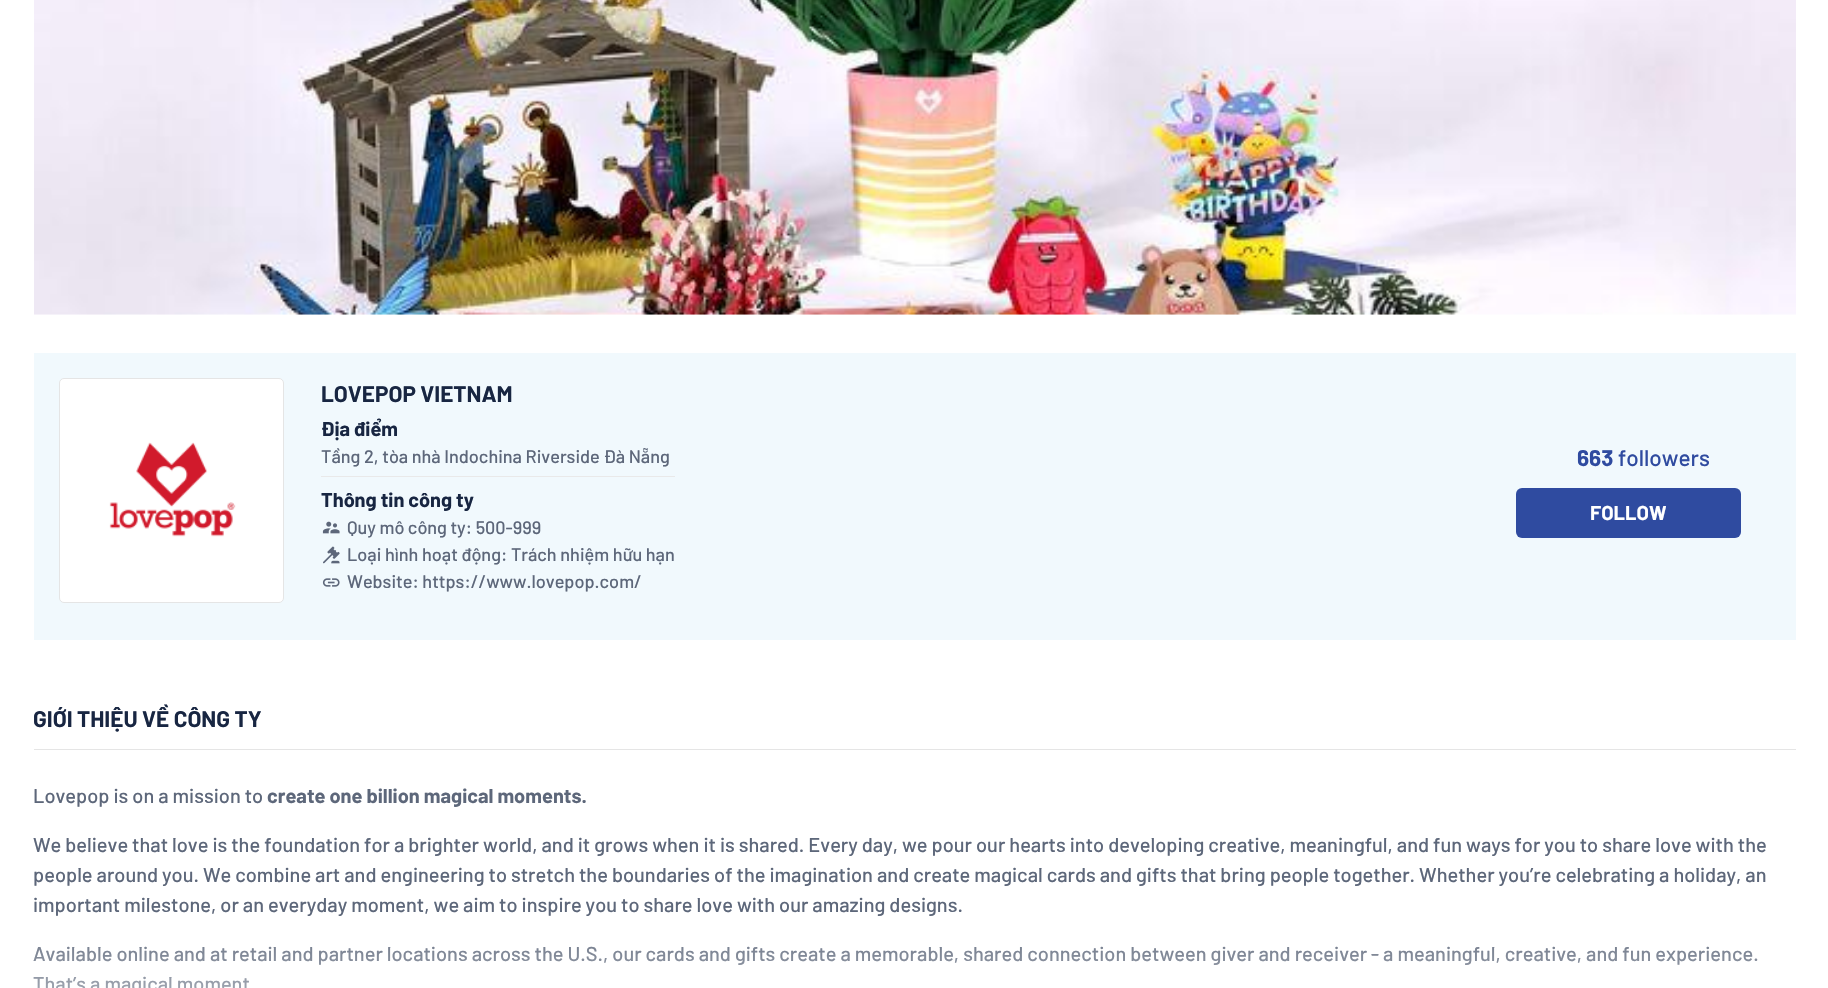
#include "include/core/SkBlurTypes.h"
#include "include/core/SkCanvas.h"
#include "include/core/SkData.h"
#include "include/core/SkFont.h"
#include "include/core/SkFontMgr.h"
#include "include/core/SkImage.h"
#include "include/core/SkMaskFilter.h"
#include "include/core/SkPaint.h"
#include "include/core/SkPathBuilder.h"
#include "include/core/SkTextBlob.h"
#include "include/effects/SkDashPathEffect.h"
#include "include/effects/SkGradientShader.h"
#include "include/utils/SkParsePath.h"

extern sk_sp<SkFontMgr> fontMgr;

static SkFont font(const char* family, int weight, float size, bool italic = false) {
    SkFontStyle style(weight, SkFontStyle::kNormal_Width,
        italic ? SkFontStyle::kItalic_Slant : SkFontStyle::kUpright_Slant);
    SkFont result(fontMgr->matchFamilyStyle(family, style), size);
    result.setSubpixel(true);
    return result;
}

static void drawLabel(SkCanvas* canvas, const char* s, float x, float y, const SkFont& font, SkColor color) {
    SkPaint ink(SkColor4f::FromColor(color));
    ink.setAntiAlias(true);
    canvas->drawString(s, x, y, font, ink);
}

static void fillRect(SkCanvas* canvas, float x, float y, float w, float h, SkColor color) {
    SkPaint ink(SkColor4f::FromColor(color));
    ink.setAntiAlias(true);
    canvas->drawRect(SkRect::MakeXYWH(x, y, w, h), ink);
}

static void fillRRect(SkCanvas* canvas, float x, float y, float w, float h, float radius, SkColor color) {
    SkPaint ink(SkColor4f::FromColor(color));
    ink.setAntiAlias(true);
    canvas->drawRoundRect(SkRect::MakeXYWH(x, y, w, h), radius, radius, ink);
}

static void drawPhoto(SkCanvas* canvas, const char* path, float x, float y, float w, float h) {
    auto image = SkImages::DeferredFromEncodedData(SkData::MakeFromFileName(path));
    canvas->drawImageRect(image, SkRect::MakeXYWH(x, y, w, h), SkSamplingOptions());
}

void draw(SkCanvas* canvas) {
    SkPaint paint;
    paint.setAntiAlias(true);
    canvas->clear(0xFFFFFFFF);
    drawPhoto(canvas, "assets/img1.png", 34, 0, 1762, 315);
    fillRect(canvas, 34, 353, 1762, 287, 0xFFF1F9FD);
    paint.setColor(0xFFFFFFFF);
    canvas->drawRoundRect(SkRect::MakeXYWH(59.5f, 378.5f, 224, 224), 4.5f, 4.5f, paint);
    paint.setStroke(true);
    paint.setStrokeWidth(1);
    paint.setColor(0xFFE5E5E5);
    canvas->drawRoundRect(SkRect::MakeXYWH(59.5f, 378.5f, 224, 224), 4.5f, 4.5f, paint);
    drawPhoto(canvas, "assets/img2.png", 109, 442, 127, 95);
    SkFont font1 = font("Barlow", 700, 22.5f);
    drawLabel(canvas, "LOVEPOP VIETNAM", 321, 402, font1, 0xFF182642);
    SkFont font2 = font("Barlow", 700, 20);
    drawLabel(canvas, "Địa điểm", 321, 436, font2, 0xFF182642);
    SkFont font3 = font("Barlow", 500, 18.1f);
    drawLabel(canvas, "Tầng 2, tòa nhà Indochina Riverside Đà Nẵng", 321, 463, font3, 0xFF5D677A);
    fillRect(canvas, 321, 476, 354, 1, 0xFFE9E9E9);
    drawLabel(canvas, "Thông tin công ty", 321, 507, font2, 0xFF182642);
    drawPhoto(canvas, "assets/img3.png", 322, 521, 18, 13);
    drawLabel(canvas, "Quy mô công ty: 500-999", 347, 534, font3, 0xFF5D677A);
    drawPhoto(canvas, "assets/img4.png", 323, 546, 17, 18);
    drawLabel(canvas, "Loại hình hoạt động: Trách nhiệm hữu hạn", 347, 561, font3, 0xFF5D677A);
    drawPhoto(canvas, "assets/img5.png", 322, 578, 18, 9);
    drawLabel(canvas, "Website: https://www.lovepop.com/", 347, 588, font3, 0xFF5D677A);
    drawLabel(canvas, "663", 1577, 466, font1, 0xFF2F4BA0);
    SkFont font4 = font("Barlow", 500, 22.5f);
    drawLabel(canvas, "followers", 1618, 466, font4, 0xFF2F4BA0);
    fillRRect(canvas, 1516, 488, 225, 50, 6, 0xFF2F4BA0);
    drawLabel(canvas, "FOLLOW", 1590, 520, font2, 0xFFFFFFFF);
    fillRect(canvas, 34, 749, 1762, 1, 0xFFE5E5E5);
    drawLabel(canvas, "GIỚI THIỆU VỀ CÔNG TY", 33, 727, font1, 0xFF182642);
    SkFont font5 = font("Barlow", 500, 20);
    drawLabel(canvas, "Lovepop is on a mission to", 33, 803, font5, 0xFF5D677A);
    drawLabel(canvas, "create one billion magical moments.", 267, 803, font2, 0xFF5D677A);
    drawLabel(canvas, "We believe that love is the foundation for a brighter world, and it grows when it is shared. Every day, we pour our hearts into developing creative, meaningful, and fun ways for you to share love with the", 33, 852, font5, 0xFF5D677A);
    drawLabel(canvas, "people around you. We combine art and engineering to stretch the boundaries of the imagination and create magical cards and gifts that bring people together. Whether you’re celebrating a holiday, an", 33, 882, font5, 0xFF5D677A);
    drawLabel(canvas, "important milestone, or an everyday moment, we aim to inspire you to share love with our amazing designs.", 33, 912, font5, 0xFF5D677A);
    drawLabel(canvas, "Available online and at retail and partner locations across the U.S., our cards and gifts create a memorable, shared connection between giver and receiver - a meaningful, creative, and fun experience.", 33, 961, font5, 0xFF5D677A);
    drawLabel(canvas, "That’s a magical moment", 33, 991, font5, 0xFF5D677A);
    paint.setStroke(false);
    {
        const SkColor colors[] = {0x99FFFFFF, 0x1AFFFFFF};
        const float stops[] = {0, 1};
        const SkPoint ends[] = {{915, 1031}, {915, 931}};
        paint.setShader(SkGradientShader::MakeLinear(ends, colors, stops, 2, SkTileMode::kClamp));
        paint.setAlpha(255);
    }
    canvas->drawRect(SkRect::MakeXYWH(34, 946, 1724, 42), paint);
}
